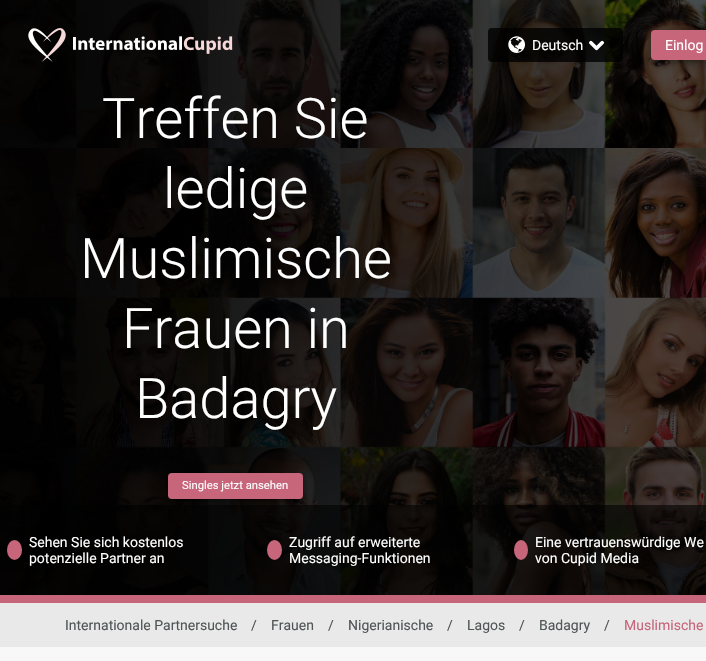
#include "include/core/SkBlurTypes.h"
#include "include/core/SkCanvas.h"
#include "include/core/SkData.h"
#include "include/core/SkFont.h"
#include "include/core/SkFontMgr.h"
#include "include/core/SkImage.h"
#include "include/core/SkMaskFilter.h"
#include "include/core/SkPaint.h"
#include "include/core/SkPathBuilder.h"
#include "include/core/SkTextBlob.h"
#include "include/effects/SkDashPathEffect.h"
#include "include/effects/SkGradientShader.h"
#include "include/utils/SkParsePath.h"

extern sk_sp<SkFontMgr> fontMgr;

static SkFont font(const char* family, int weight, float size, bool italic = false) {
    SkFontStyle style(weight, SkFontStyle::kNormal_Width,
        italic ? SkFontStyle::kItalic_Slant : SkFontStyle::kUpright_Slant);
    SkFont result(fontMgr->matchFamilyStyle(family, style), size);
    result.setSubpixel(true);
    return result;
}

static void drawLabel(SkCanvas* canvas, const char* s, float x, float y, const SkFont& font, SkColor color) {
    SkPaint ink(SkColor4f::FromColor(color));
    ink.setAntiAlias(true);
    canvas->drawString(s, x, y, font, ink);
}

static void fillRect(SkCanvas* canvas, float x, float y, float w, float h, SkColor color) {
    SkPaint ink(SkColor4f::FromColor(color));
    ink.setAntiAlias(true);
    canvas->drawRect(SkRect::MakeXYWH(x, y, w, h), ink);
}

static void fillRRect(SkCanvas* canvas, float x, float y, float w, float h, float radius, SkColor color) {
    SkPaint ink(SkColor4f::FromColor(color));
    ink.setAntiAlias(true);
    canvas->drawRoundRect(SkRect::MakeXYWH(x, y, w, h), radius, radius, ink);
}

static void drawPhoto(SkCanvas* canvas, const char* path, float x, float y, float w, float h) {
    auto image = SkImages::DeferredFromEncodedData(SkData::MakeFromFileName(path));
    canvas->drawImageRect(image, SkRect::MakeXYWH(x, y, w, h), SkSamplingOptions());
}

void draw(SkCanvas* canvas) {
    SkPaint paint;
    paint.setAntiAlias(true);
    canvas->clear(0xFFF8F8F8);
    drawPhoto(canvas, "assets/img5.png", 0, 0, 706, 595);
    drawPhoto(canvas, "assets/img1.png", 28, 28, 38, 34);
    drawPhoto(canvas, "assets/img2.png", 73, 36, 160, 18);
    fillRRect(canvas, 488, 28, 135, 34, 4, 0xCC000000);
    drawPhoto(canvas, "assets/img3.png", 508, 36, 17, 17);
    SkFont font1 = font("Roboto", 400, 14);
    drawLabel(canvas, "Deutsch", 532, 50, font1, 0xFFFFFFFF);
    drawPhoto(canvas, "assets/img4.png", 589, 40, 15, 11);
    paint.setColor(0x66000000);
    paint.setMaskFilter(SkMaskFilter::MakeBlur(kNormal_SkBlurStyle, 3));
    canvas->drawRoundRect(SkRect::MakeXYWH(651, 33, 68, 30), 4, 4, paint);
    paint.setMaskFilter(nullptr);
    fillRRect(canvas, 651, 30, 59, 30, 4, 0xFFC7657B);
    drawLabel(canvas, "Einlog", 665, 50, font1, 0xFFFFFFFF);
    SkFont font2 = font("Roboto", 300, 56);
    drawLabel(canvas, "Treffen Sie", 102, 138, font2, 0xFFFFFFFF);
    drawLabel(canvas, "ledige", 163, 208, font2, 0xFFFFFFFF);
    drawLabel(canvas, "Muslimische", 80, 278, font2, 0xFFFFFFFF);
    drawLabel(canvas, "Frauen in", 122, 348, font2, 0xFFFFFFFF);
    drawLabel(canvas, "Badagry", 135, 418, font2, 0xFFFFFFFF);
    fillRect(canvas, 0, 505, 706, 90, 0x99000000);
    paint.setMaskFilter(SkMaskFilter::MakeBlur(kNormal_SkBlurStyle, 3));
    canvas->drawRoundRect(SkRect::MakeXYWH(168, 476, 135, 26), 4, 4, paint);
    paint.setMaskFilter(nullptr);
    fillRRect(canvas, 168, 473, 135, 26, 4, 0xFFC7657B);
    SkFont font3 = font("Roboto", 400, 11.25f);
    drawLabel(canvas, "Singles jetzt ansehen", 182, 489, font3, 0xFFFFFFFF);
    paint.setColor(0xFFC7657B);
    canvas->drawOval(SkRect::MakeXYWH(7, 540, 15, 20), paint);
    drawLabel(canvas, "Sehen Sie sich kostenlos", 29, 547, font1, 0xFFFFFFFF);
    drawLabel(canvas, "potenzielle Partner an", 29, 563, font1, 0xFFFFFFFF);
    canvas->drawOval(SkRect::MakeXYWH(267, 540, 15, 20), paint);
    drawLabel(canvas, "Zugriff auf erweiterte", 289, 547, font1, 0xFFFFFFFF);
    drawLabel(canvas, "Messaging-Funktionen", 289, 563, font1, 0xFFFFFFFF);
    canvas->drawOval(SkRect::MakeXYWH(514, 540, 14, 20), paint);
    drawLabel(canvas, "Eine vertrauenswürdige We", 535, 547, font1, 0xFFFFFFFF);
    drawLabel(canvas, "von Cupid Media", 535, 563, font1, 0xFFFFFFFF);
    fillRect(canvas, 0, 595, 706, 8, 0xFFC7657B);
    fillRect(canvas, 0, 603, 706, 44, 0xFFE9E9E9);
    drawLabel(canvas, "Internationale Partnersuche", 65, 630, font1, 0xFF505656);
    drawLabel(canvas, "/", 251, 630, font1, 0xFF505656);
    drawLabel(canvas, "Frauen", 271, 630, font1, 0xFF505656);
    drawLabel(canvas, "/", 328, 630, font1, 0xFF505656);
    drawLabel(canvas, "Nigerianische", 348, 630, font1, 0xFF505656);
    drawLabel(canvas, "/", 447, 630, font1, 0xFF505656);
    drawLabel(canvas, "Lagos", 467, 630, font1, 0xFF505656);
    drawLabel(canvas, "/", 519, 630, font1, 0xFF505656);
    drawLabel(canvas, "Badagry", 539, 630, font1, 0xFF505656);
    drawLabel(canvas, "/", 604, 630, font1, 0xFF505656);
    drawLabel(canvas, "Muslimische", 624, 630, font1, 0xFFC7657B);
}
